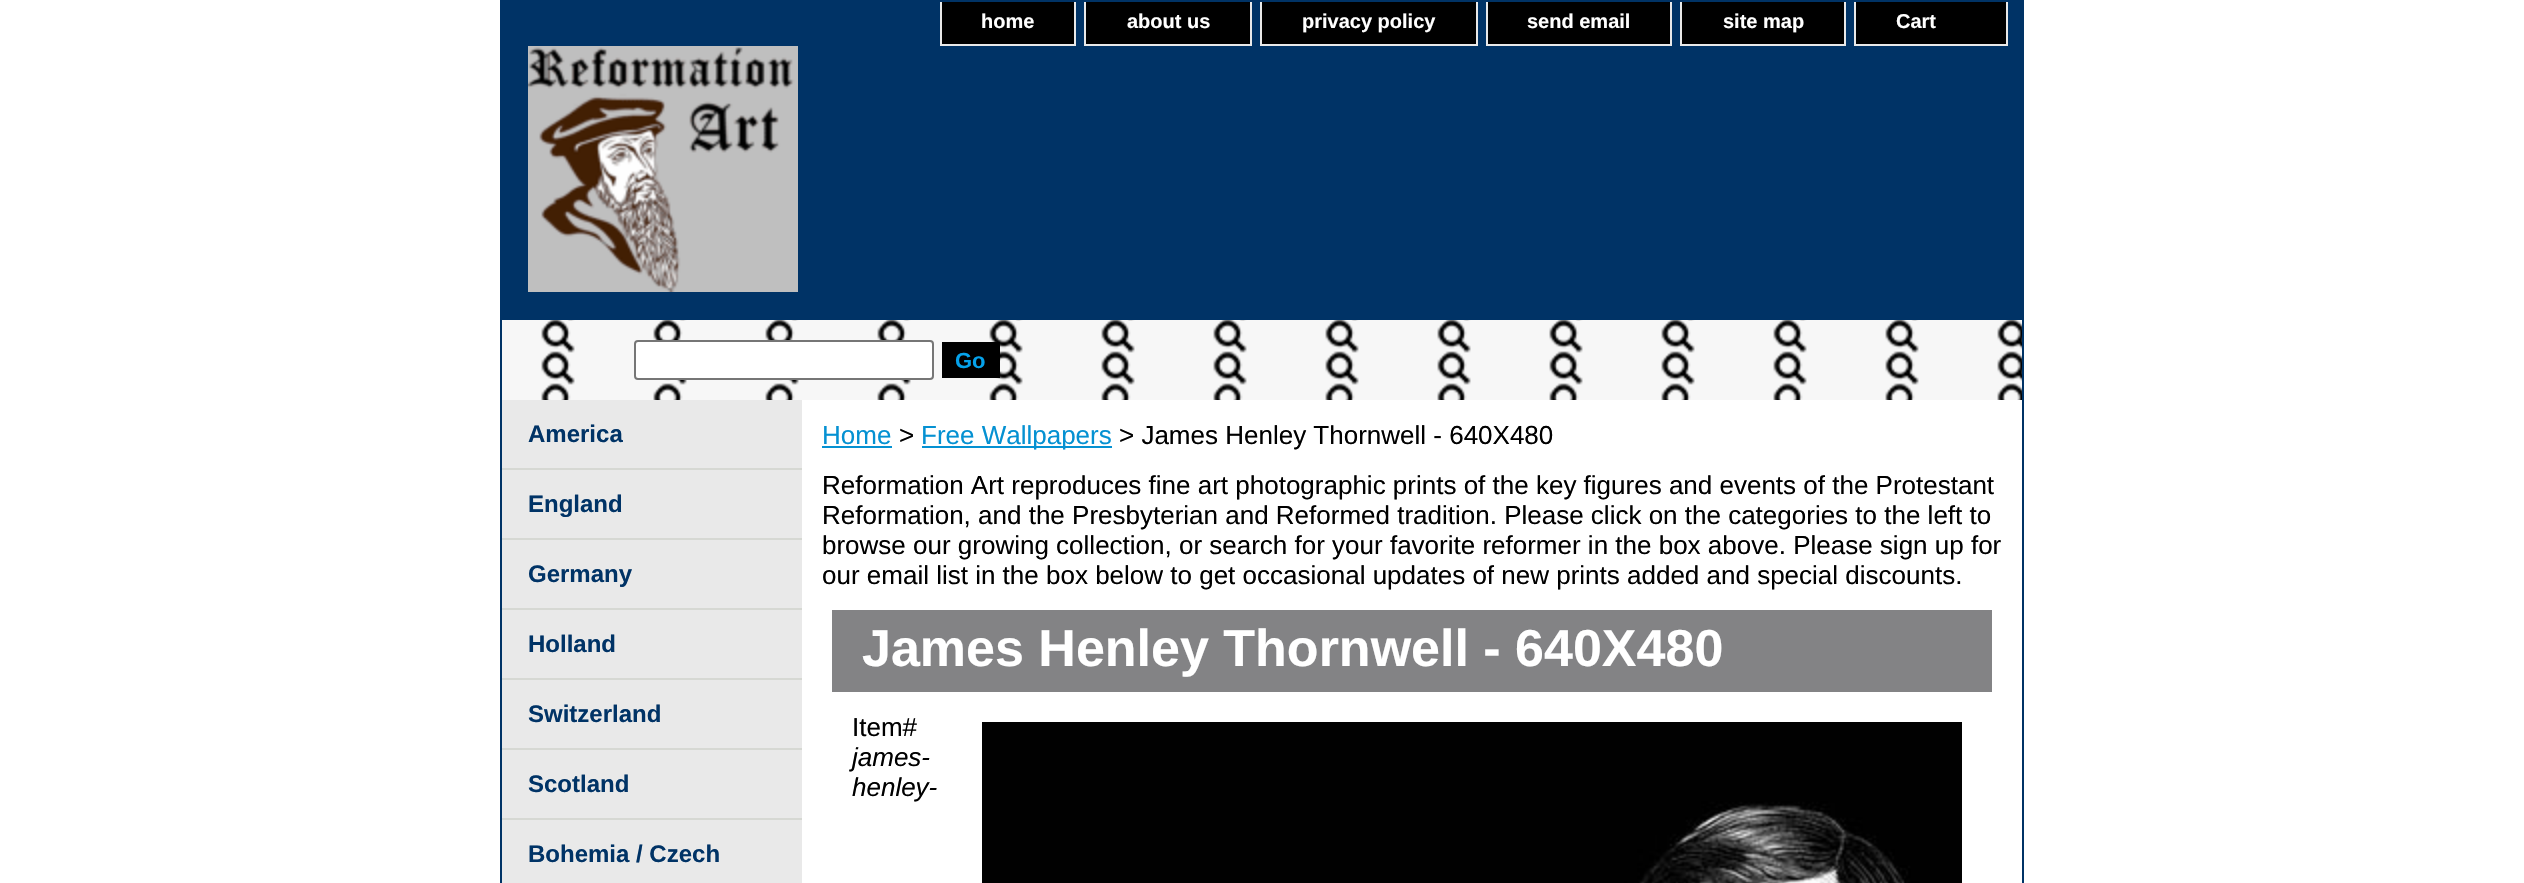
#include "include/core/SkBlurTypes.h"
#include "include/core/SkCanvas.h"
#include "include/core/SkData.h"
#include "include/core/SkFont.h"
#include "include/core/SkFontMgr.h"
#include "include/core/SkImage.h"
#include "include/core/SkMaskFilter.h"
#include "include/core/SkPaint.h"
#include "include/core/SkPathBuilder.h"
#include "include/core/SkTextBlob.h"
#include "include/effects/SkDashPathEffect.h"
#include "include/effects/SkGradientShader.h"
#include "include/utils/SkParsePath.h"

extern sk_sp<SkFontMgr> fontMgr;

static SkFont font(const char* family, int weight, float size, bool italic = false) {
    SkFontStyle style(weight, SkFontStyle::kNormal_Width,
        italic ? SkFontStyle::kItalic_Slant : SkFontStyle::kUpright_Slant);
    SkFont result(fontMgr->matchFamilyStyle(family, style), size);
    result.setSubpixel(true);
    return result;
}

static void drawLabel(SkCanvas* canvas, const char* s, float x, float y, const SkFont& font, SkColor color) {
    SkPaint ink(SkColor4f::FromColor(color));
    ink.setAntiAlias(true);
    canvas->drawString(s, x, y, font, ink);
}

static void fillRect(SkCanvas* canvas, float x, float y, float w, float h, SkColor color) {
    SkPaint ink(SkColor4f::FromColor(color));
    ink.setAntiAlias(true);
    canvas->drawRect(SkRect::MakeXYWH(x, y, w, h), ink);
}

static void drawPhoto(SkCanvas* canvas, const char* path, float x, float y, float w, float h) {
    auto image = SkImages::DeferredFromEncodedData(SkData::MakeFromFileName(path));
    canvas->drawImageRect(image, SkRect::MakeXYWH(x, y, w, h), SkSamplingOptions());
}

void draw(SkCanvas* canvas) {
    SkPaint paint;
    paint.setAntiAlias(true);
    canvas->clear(0xFFFFFFFF);
    paint.setStroke(true);
    paint.setStrokeWidth(2);
    paint.setColor(0xFF003366);
    canvas->drawRect(SkRect::MakeXYWH(501, 1, 1522, 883), paint);
    fillRect(canvas, 502, 2, 1520, 318, 0xFF003366);
    fillRect(canvas, 942, 2, 132, 42, 0xFF000000);
    fillRect(canvas, 1074, 2, 2, 44, 0xFFE9E9E9);
    fillRect(canvas, 940, 44, 136, 2, 0xFFE9E9E9);
    fillRect(canvas, 940, 2, 2, 44, 0xFFE9E9E9);
    SkFont font1 = font("Liberation Sans", 700, 20);
    drawLabel(canvas, "home", 981, 28, font1, 0xFFFFFFFF);
    fillRect(canvas, 1086, 2, 164, 42, 0xFF000000);
    fillRect(canvas, 1250, 2, 2, 44, 0xFFE9E9E9);
    fillRect(canvas, 1084, 44, 168, 2, 0xFFE9E9E9);
    fillRect(canvas, 1084, 2, 2, 44, 0xFFE9E9E9);
    drawLabel(canvas, "about us", 1127, 28, font1, 0xFFFFFFFF);
    fillRect(canvas, 1262, 2, 214, 42, 0xFF000000);
    fillRect(canvas, 1476, 2, 2, 44, 0xFFE9E9E9);
    fillRect(canvas, 1260, 44, 218, 2, 0xFFE9E9E9);
    fillRect(canvas, 1260, 2, 2, 44, 0xFFE9E9E9);
    drawLabel(canvas, "privacy policy", 1302, 28, font1, 0xFFFFFFFF);
    fillRect(canvas, 1488, 2, 182, 42, 0xFF000000);
    fillRect(canvas, 1670, 2, 2, 44, 0xFFE9E9E9);
    fillRect(canvas, 1486, 44, 186, 2, 0xFFE9E9E9);
    fillRect(canvas, 1486, 2, 2, 44, 0xFFE9E9E9);
    drawLabel(canvas, "send email", 1527, 28, font1, 0xFFFFFFFF);
    fillRect(canvas, 1682, 2, 162, 42, 0xFF000000);
    fillRect(canvas, 1844, 2, 2, 44, 0xFFE9E9E9);
    fillRect(canvas, 1680, 44, 166, 2, 0xFFE9E9E9);
    fillRect(canvas, 1680, 2, 2, 44, 0xFFE9E9E9);
    drawLabel(canvas, "site map", 1723, 28, font1, 0xFFFFFFFF);
    fillRect(canvas, 1856, 2, 150, 42, 0xFF000000);
    fillRect(canvas, 2006, 2, 2, 44, 0xFFE9E9E9);
    fillRect(canvas, 1854, 44, 154, 2, 0xFFE9E9E9);
    fillRect(canvas, 1854, 2, 2, 44, 0xFFE9E9E9);
    drawLabel(canvas, "Cart", 1896, 28, font1, 0xFFFFFFFF);
    drawPhoto(canvas, "assets/img1.png", 528, 46, 270, 246);
    fillRect(canvas, 502, 320, 1520, 80, 0xFFF7F7F7);
    drawPhoto(canvas, "assets/img2.png", 541, 320, 1481, 80);
    paint.setStroke(false);
    paint.setColor(0xFFFFFFFF);
    canvas->drawRoundRect(SkRect::MakeXYWH(635, 341, 298, 38), 3, 3, paint);
    paint.setStroke(true);
    paint.setColor(0xFF767676);
    canvas->drawRoundRect(SkRect::MakeXYWH(635, 341, 298, 38), 3, 3, paint);
    fillRect(canvas, 942, 342, 58, 36, 0xFF000000);
    SkFont font2 = font("Liberation Sans", 700, 22);
    drawLabel(canvas, "Go", 955, 368, font2, 0xFF05A2EB);
    fillRect(canvas, 502, 400, 300, 483, 0xFFE9E9E9);
    fillRect(canvas, 502, 468, 300, 2, 0xFFD6D8D3);
    SkFont font3 = font("Liberation Sans", 700, 24);
    drawLabel(canvas, "America", 528, 442, font3, 0xFF003366);
    fillRect(canvas, 502, 538, 300, 2, 0xFFD6D8D3);
    drawLabel(canvas, "England", 528, 512, font3, 0xFF003366);
    fillRect(canvas, 502, 608, 300, 2, 0xFFD6D8D3);
    drawLabel(canvas, "Germany", 528, 582, font3, 0xFF003366);
    fillRect(canvas, 502, 678, 300, 2, 0xFFD6D8D3);
    drawLabel(canvas, "Holland", 528, 652, font3, 0xFF003366);
    fillRect(canvas, 502, 748, 300, 2, 0xFFD6D8D3);
    drawLabel(canvas, "Switzerland", 528, 722, font3, 0xFF003366);
    fillRect(canvas, 502, 818, 300, 2, 0xFFD6D8D3);
    drawLabel(canvas, "Scotland", 528, 792, font3, 0xFF003366);
    drawLabel(canvas, "Bohemia / Czech", 528, 862, font3, 0xFF003366);
    SkFont font4 = font("Liberation Sans", 400, 26);
    drawLabel(canvas, "Home", 822, 444, font4, 0xFF0591D2);
    fillRect(canvas, 822, 446, 70, 2, 0xFF0591D2);
    drawLabel(canvas, ">", 899, 444, font4, 0xFF000000);
    fillRect(canvas, 922, 446, 190, 2, 0xFF0591D2);
    drawLabel(canvas, "Free Wallpapers", 921, 444, font4, 0xFF0591D2);
    drawLabel(canvas, "> James Henley Thornwell - 640X480", 1119, 444, font4, 0xFF000000);
    drawLabel(canvas, "Reformation Art reproduces fine art photographic prints of the key figures and events of the Protestant", 822, 494, font4, 0xFF000000);
    drawLabel(canvas, "Reformation, and the Presbyterian and Reformed tradition. Please click on the categories to the left to", 822, 524, font4, 0xFF000000);
    drawLabel(canvas, "browse our growing collection, or search for your favorite reformer in the box above. Please sign up for", 822, 554, font4, 0xFF000000);
    drawLabel(canvas, "our email list in the box below to get occasional updates of new prints added and special discounts.", 822, 584, font4, 0xFF000000);
    fillRect(canvas, 832, 610, 1160, 82, 0xFF838385);
    SkFont font5 = font("Liberation Sans", 700, 52);
    drawLabel(canvas, "James Henley Thornwell - 640X480", 862, 666, font5, 0xFFFFFFFF);
    drawLabel(canvas, "Item#", 852, 736, font4, 0xFF000000);
    SkFont font6 = font("Liberation Sans", 400, 26, true);
    drawLabel(canvas, "james-", 852, 766, font6, 0xFF000000);
    drawLabel(canvas, "henley-", 852, 796, font6, 0xFF000000);
    drawPhoto(canvas, "assets/img3.png", 982, 722, 980, 161);
}
